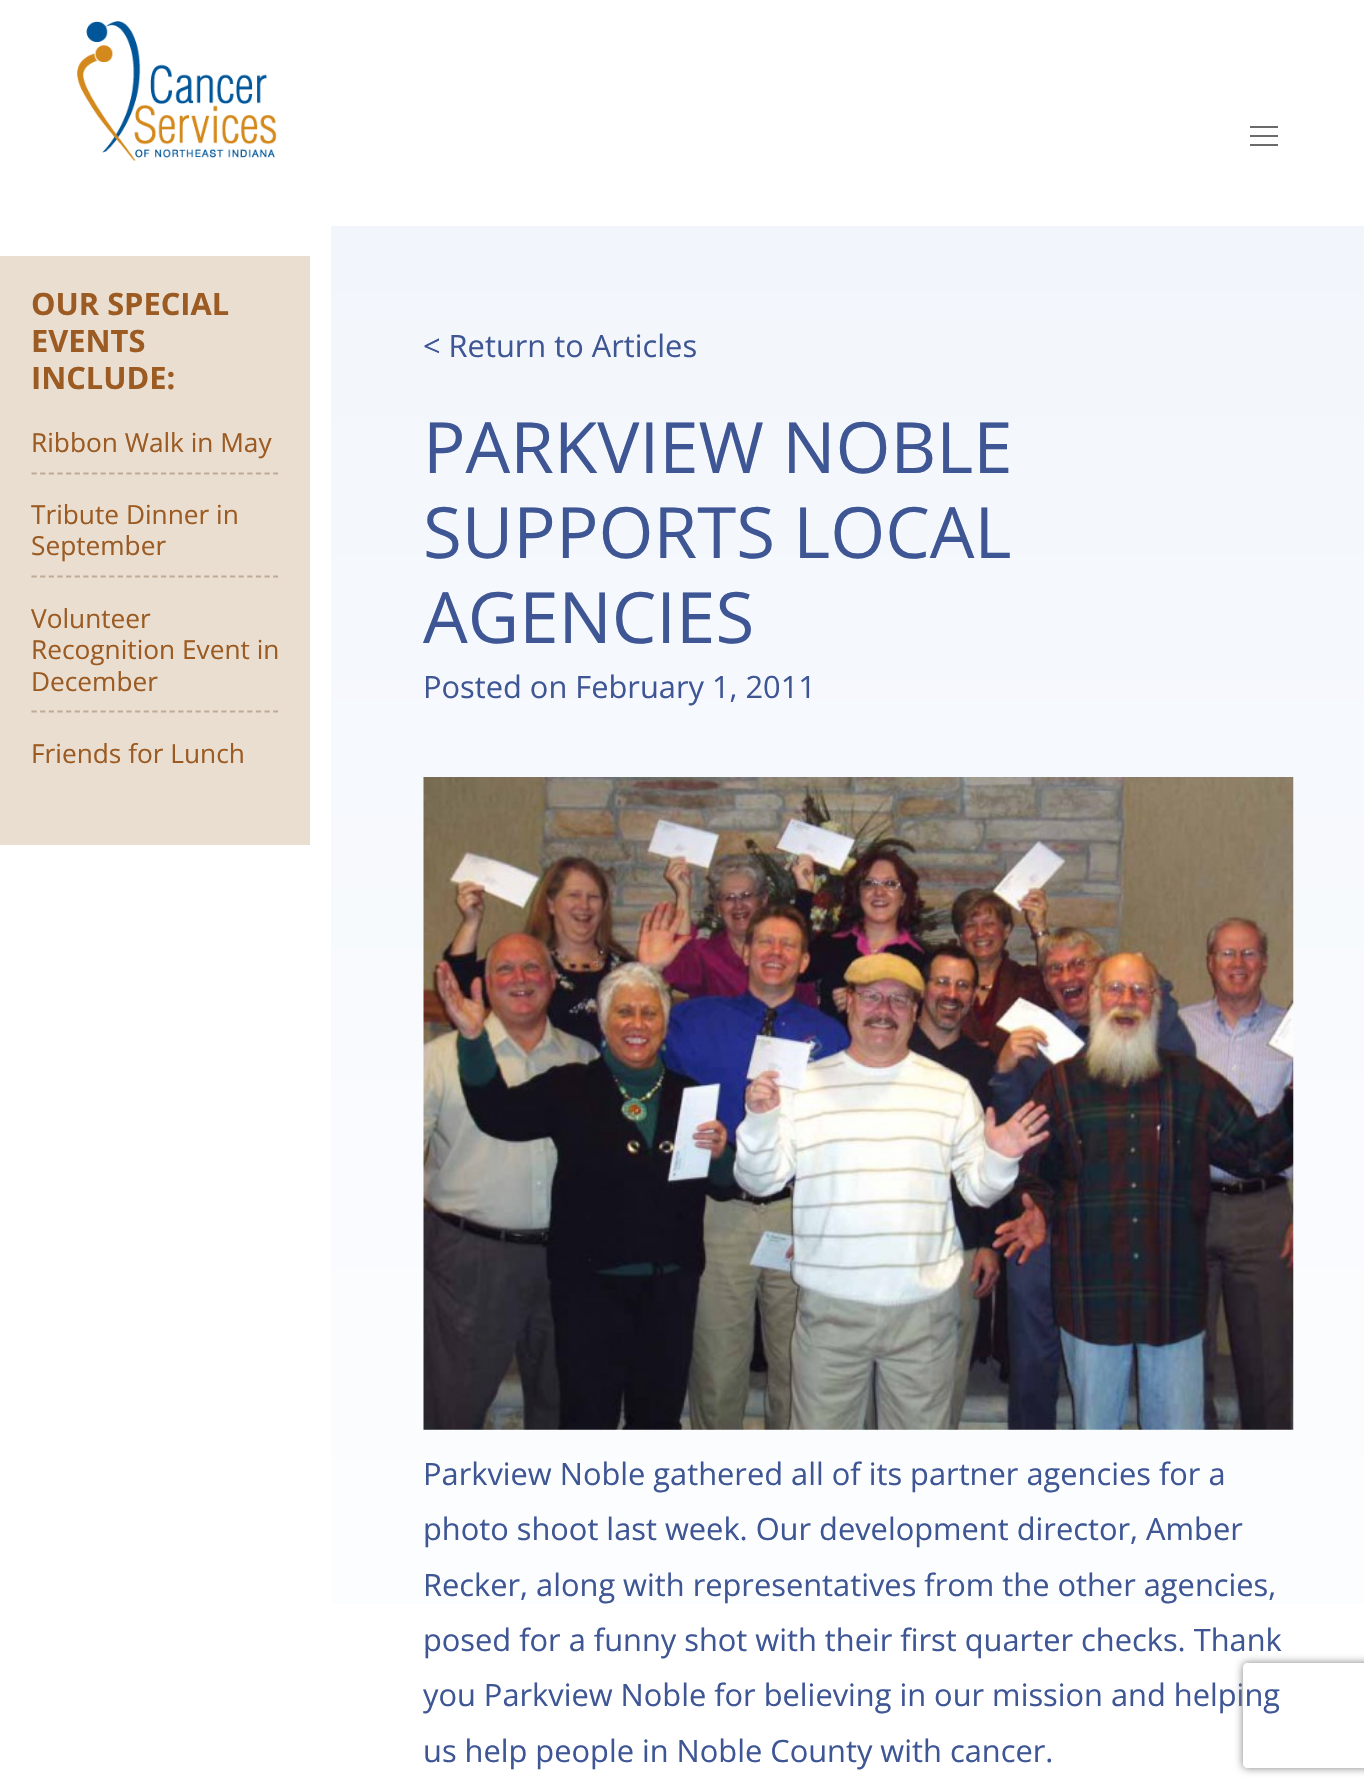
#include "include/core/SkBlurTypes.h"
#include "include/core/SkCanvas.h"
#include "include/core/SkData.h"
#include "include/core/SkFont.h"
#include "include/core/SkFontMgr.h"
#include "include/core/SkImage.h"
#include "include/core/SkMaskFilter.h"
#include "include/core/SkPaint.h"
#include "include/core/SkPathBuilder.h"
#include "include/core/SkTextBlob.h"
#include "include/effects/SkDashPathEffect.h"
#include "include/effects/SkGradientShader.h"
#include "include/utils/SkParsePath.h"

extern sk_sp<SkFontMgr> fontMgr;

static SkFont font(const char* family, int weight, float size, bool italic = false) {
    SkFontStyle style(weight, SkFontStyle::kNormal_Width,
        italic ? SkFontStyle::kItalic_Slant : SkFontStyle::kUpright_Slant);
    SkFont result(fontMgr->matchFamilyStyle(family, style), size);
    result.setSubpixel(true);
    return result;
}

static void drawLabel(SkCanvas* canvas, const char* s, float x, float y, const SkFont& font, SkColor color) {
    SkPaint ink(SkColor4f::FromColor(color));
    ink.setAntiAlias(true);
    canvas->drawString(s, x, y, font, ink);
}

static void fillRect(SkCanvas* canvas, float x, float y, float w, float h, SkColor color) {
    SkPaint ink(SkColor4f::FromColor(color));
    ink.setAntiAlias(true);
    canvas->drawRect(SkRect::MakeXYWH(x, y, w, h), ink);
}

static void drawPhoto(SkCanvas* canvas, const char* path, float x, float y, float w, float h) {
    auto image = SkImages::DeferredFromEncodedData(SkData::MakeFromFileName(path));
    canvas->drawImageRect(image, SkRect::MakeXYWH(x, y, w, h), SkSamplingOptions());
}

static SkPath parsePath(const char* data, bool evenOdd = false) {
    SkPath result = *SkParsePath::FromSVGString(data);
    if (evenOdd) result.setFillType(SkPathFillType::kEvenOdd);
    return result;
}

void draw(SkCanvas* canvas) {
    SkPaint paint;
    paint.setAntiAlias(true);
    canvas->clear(0xFFFFFFFF);
    drawPhoto(canvas, "assets/img1.png", 77, 21, 200, 140);
    fillRect(canvas, 1250, 126, 28, 2, 0xFF6A6A6A);
    fillRect(canvas, 1250, 135, 28, 2, 0xFF6A6A6A);
    fillRect(canvas, 1250, 144, 28, 2, 0xFF6A6A6A);
    fillRect(canvas, 0, 256, 310, 589, 0xFFEADED1);
    SkFont font1 = font("Open Sans", 700, 30.8f);
    drawLabel(canvas, "OUR SPECIAL", 31, 315, font1, 0xFF9B5B22);
    drawLabel(canvas, "EVENTS", 31, 352, font1, 0xFF9B5B22);
    drawLabel(canvas, "INCLUDE:", 31, 389, font1, 0xFF9B5B22);
    paint.setStroke(true);
    paint.setStrokeWidth(1.8f);
    paint.setColor(0xFFBEAB97);
    paint.setPathEffect(SkDashPathEffect::Make({{5.25f, 3.38f}}, 0));
    canvas->drawPath(parsePath("M31.5 473.5H278"), paint);
    paint.setPathEffect(nullptr);
    SkFont font2 = font("Open Sans", 400, 26.25f);
    drawLabel(canvas, "Ribbon Walk in May", 31, 452, font2, 0xFF9B5B22);
    paint.setPathEffect(SkDashPathEffect::Make({{5.25f, 3.38f}}, 0));
    canvas->drawPath(parsePath("M31.5 576.5H278"), paint);
    paint.setPathEffect(nullptr);
    drawLabel(canvas, "Tribute Dinner in", 31, 524, font2, 0xFF9B5B22);
    drawLabel(canvas, "September", 31, 555, font2, 0xFF9B5B22);
    paint.setPathEffect(SkDashPathEffect::Make({{5.25f, 3.38f}}, 0));
    canvas->drawPath(parsePath("M31.5 711.5H278"), paint);
    paint.setPathEffect(nullptr);
    drawLabel(canvas, "Volunteer", 31, 628, font2, 0xFF9B5B22);
    drawLabel(canvas, "Recognition Event in", 31, 659, font2, 0xFF9B5B22);
    drawLabel(canvas, "December", 31, 691, font2, 0xFF9B5B22);
    drawLabel(canvas, "Friends for Lunch", 31, 763, font2, 0xFF9B5B22);
    paint.setStroke(false);
    {
        const SkColor colors[] = {0xFFF2F6FC, 0xFFFFFFFF};
        const float stops[] = {0, 1};
        const SkPoint ends[] = {{858, 226}, {858, 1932}};
        paint.setShader(SkGradientShader::MakeLinear(ends, colors, stops, 2, SkTileMode::kClamp));
        paint.setAlpha(255);
    }
    canvas->drawRect(SkRect::MakeXYWH(331, 226, 1033, 1378), paint);
    SkFont font3 = font("Open Sans", 400, 30.8f);
    drawLabel(canvas, "< Return to Articles", 423, 357, font3, 0xFF3F5695);
    SkFont font4 = font("Open Sans", 400, 70.75f);
    drawLabel(canvas, "PARKVIEW NOBLE", 423, 473, font4, 0xFF3F5695);
    drawLabel(canvas, "SUPPORTS LOCAL", 423, 558, font4, 0xFF3F5695);
    drawLabel(canvas, "AGENCIES", 423, 643, font4, 0xFF3F5695);
    drawLabel(canvas, "Posted on February 1, 2011", 423, 698, font3, 0xFF3F5695);
    drawPhoto(canvas, "assets/img2.png", 423, 777, 871, 653);
    drawLabel(canvas, "Parkview Noble gathered all of its partner agencies for a", 423, 1485, font3, 0xFF3F5695);
    drawLabel(canvas, "photo shoot last week. Our development director, Amber", 423, 1540, font3, 0xFF3F5695);
    drawLabel(canvas, "Recker, along with representatives from the other agencies,", 423, 1596, font3, 0xFF3F5695);
    drawLabel(canvas, "posed for a funny shot with their first quarter checks. Thank", 423, 1651, font3, 0xFF3F5695);
    drawLabel(canvas, "you Parkview Noble for believing in our mission and helping", 423, 1706, font3, 0xFF3F5695);
    drawLabel(canvas, "us help people in Noble County with cancer.", 423, 1762, font3, 0xFF3F5695);
    canvas->save();
    canvas->clipPath(parsePath("M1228 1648H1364V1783H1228ZM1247 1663H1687C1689 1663 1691 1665 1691 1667V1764C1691 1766 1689 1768 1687 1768H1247C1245 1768 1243 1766 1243 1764V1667C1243 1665 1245 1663 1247 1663Z", true), true);
    paint.setShader(nullptr);
    paint.setColor(0xFF808080);
    paint.setMaskFilter(SkMaskFilter::MakeBlur(kNormal_SkBlurStyle, 4.5f));
    canvas->drawRoundRect(SkRect::MakeXYWH(1243, 1663, 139, 105), 4, 4, paint);
    paint.setMaskFilter(nullptr);
    canvas->restore();
}
